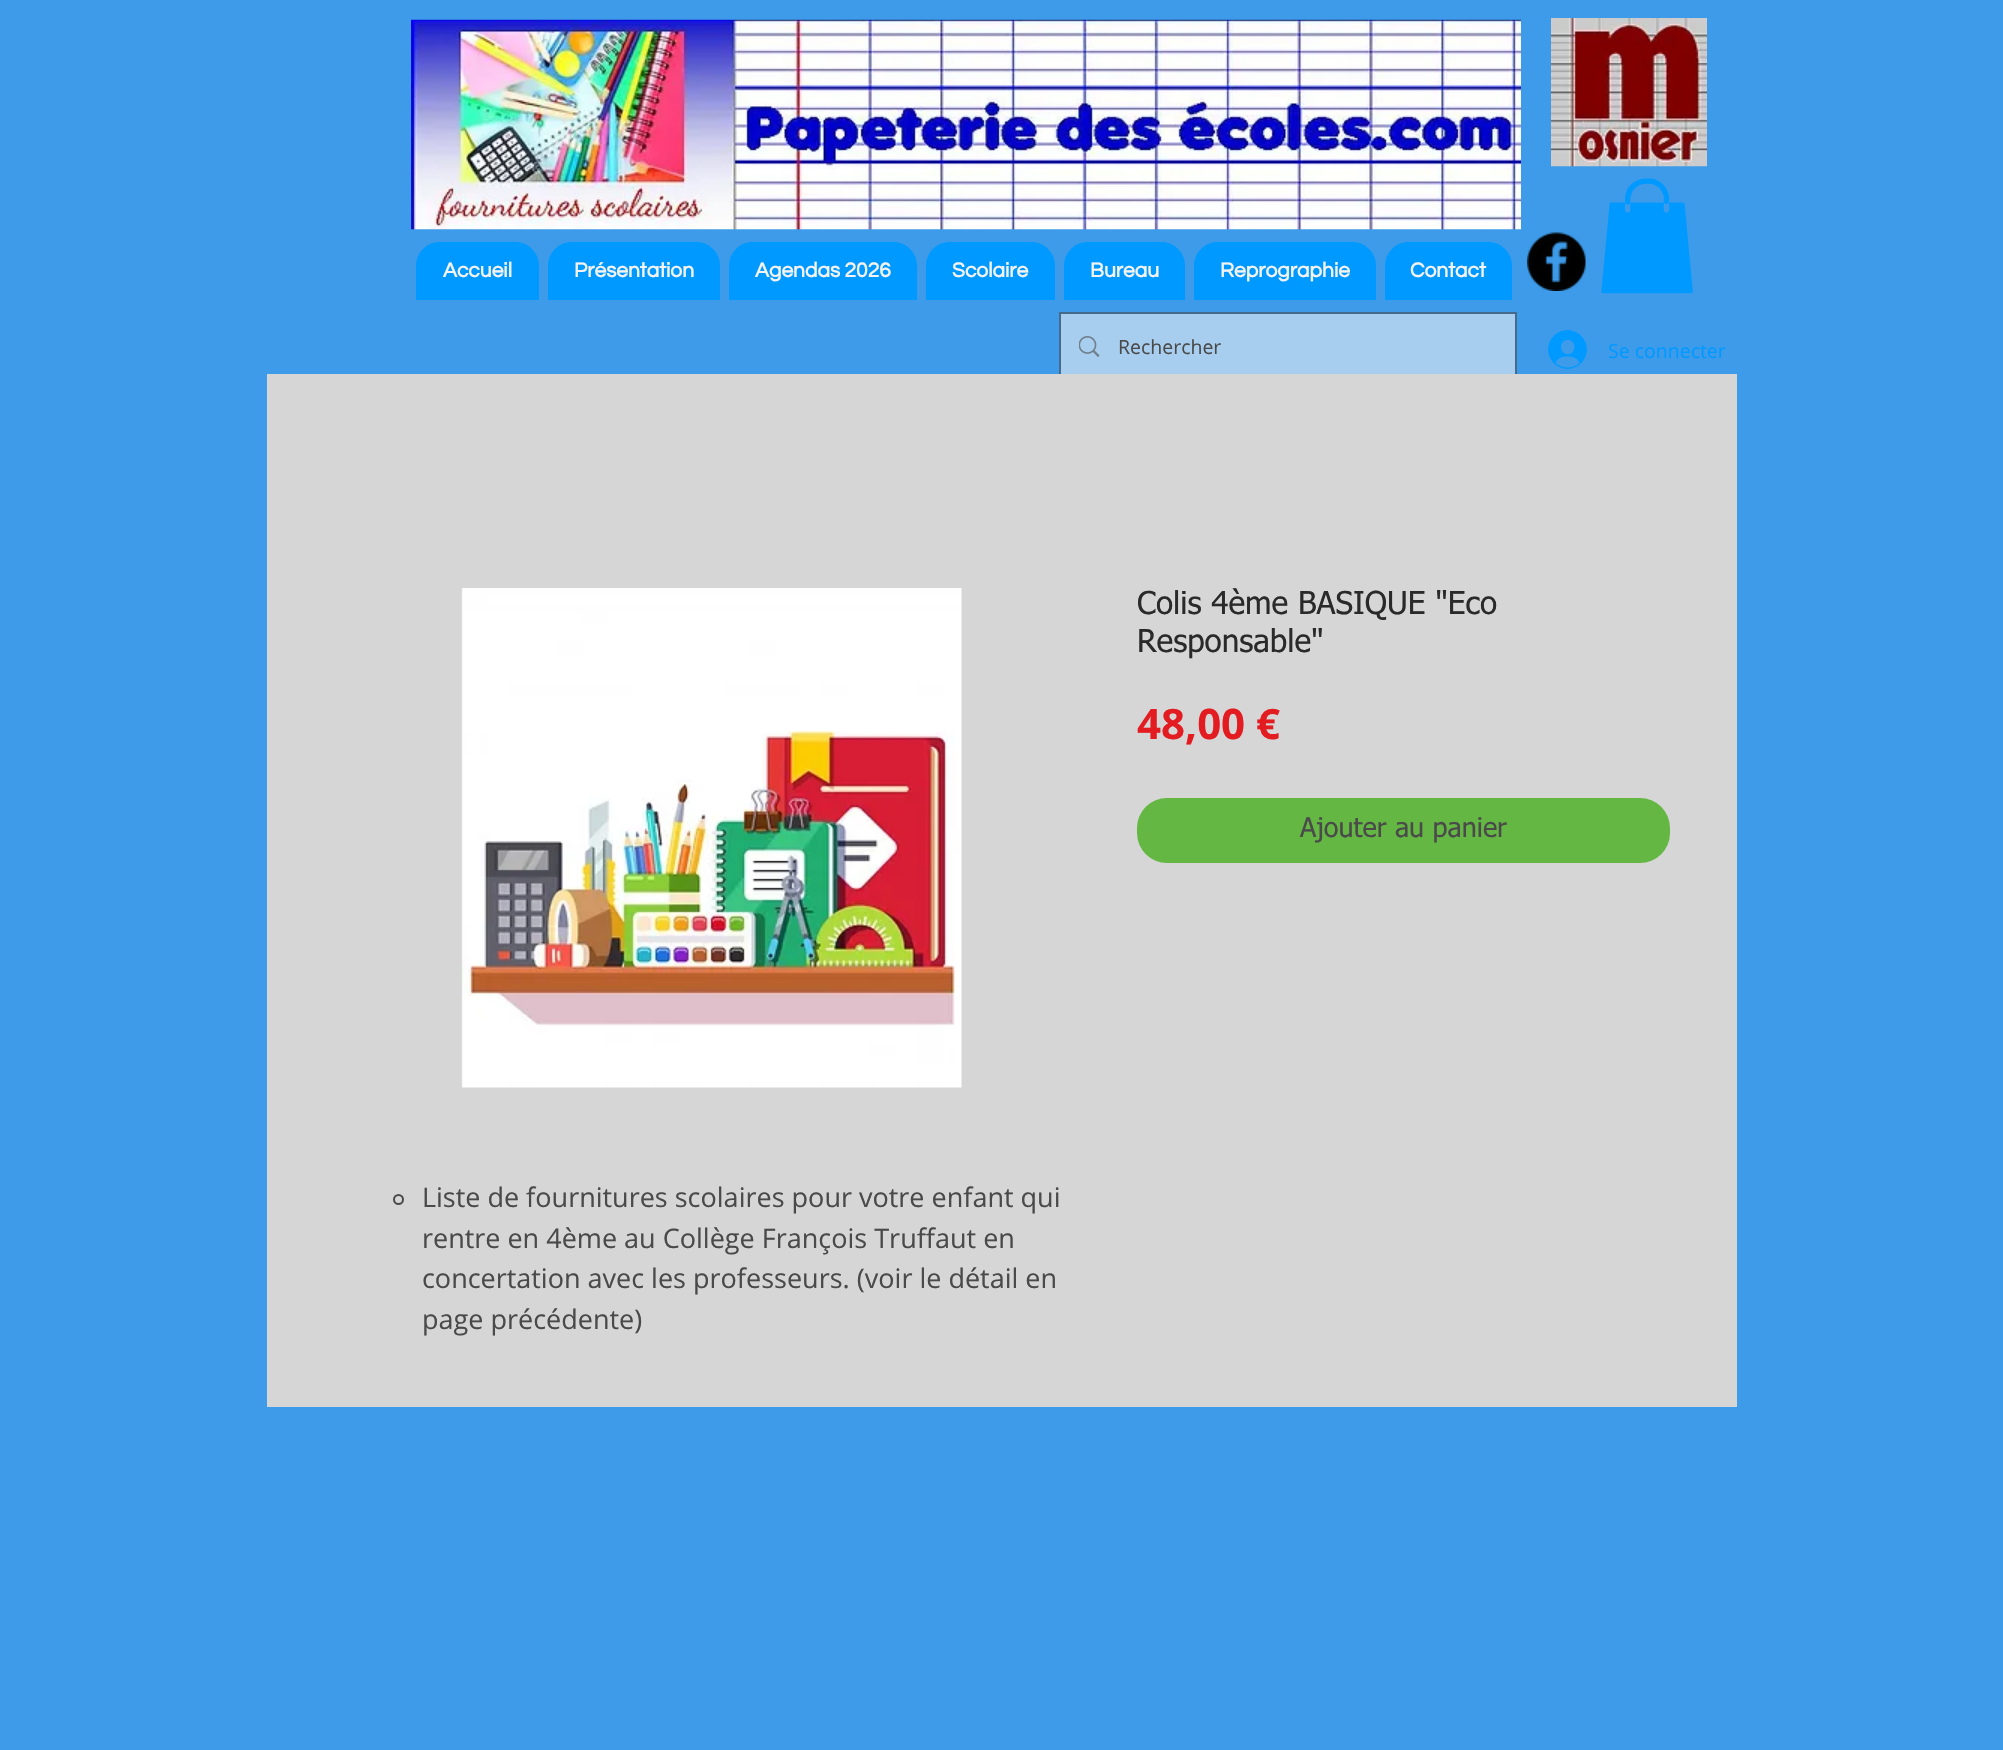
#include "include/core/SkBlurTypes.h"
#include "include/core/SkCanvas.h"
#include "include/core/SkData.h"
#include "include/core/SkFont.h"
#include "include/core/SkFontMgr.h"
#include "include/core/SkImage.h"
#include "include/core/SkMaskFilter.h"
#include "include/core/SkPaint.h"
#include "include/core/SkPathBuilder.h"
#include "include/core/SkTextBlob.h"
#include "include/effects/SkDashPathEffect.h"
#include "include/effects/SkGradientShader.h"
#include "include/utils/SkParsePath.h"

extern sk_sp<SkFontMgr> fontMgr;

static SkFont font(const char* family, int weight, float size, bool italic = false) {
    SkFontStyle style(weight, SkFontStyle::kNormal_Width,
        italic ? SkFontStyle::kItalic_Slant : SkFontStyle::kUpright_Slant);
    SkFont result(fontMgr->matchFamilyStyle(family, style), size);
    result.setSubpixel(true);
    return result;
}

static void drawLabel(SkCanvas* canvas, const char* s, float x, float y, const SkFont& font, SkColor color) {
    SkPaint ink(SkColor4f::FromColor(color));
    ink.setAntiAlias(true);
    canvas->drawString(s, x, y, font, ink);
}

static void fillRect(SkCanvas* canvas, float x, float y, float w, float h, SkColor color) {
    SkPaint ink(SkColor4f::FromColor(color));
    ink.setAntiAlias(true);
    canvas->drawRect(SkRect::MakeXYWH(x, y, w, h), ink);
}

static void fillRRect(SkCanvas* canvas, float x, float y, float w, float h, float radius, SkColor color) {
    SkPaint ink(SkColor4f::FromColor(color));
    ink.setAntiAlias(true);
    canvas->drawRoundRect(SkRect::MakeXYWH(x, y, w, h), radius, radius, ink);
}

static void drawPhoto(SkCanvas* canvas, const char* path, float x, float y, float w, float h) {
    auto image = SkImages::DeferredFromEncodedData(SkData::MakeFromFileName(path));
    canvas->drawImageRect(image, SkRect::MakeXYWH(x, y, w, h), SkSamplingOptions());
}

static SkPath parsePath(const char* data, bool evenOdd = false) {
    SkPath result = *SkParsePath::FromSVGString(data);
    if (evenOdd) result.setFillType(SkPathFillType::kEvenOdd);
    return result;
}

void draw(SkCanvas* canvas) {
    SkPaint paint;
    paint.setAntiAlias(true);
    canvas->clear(0xFF3D9BE9);
    drawPhoto(canvas, "assets/img1.png", 411, 19, 1110, 211);
    drawPhoto(canvas, "assets/img2.png", 1551, 18, 156, 149);
    paint.setColor(0xFF0099FF);
    canvas->drawPath(parsePath("M440 242H515C528.5 242 539 252.5 539 266V300H416V266C416 252.5 426.5 242 440 242Z"), paint);
    SkFont font1 = font("Questrial", 700, 21);
    drawLabel(canvas, "Accueil", 443, 277, font1, 0xFFF3F3F3);
    canvas->drawPath(parsePath("M572 242H696C709.5 242 720 252.5 720 266V300H548V266C548 252.5 558.5 242 572 242Z"), paint);
    drawLabel(canvas, "Présentation", 574, 277, font1, 0xFFF3F3F3);
    canvas->drawPath(parsePath("M753 242H893C906.5 242 917 252.5 917 266V300H729V266C729 252.5 739.5 242 753 242Z"), paint);
    drawLabel(canvas, "Agendas 2026", 755, 277, font1, 0xFFF3F3F3);
    canvas->drawPath(parsePath("M950 242H1031C1044.5 242 1055 252.5 1055 266V300H926V266C926 252.5 936.5 242 950 242Z"), paint);
    drawLabel(canvas, "Scolaire", 952, 277, font1, 0xFFF3F3F3);
    canvas->drawPath(parsePath("M1088 242H1161C1174.5 242 1185 252.5 1185 266V300H1064V266C1064 252.5 1074.5 242 1088 242Z"), paint);
    drawLabel(canvas, "Bureau", 1090, 277, font1, 0xFFF3F3F3);
    canvas->drawPath(parsePath("M1218 242H1352C1365.5 242 1376 252.5 1376 266V300H1194V266C1194 252.5 1204.5 242 1218 242Z"), paint);
    drawLabel(canvas, "Reprographie", 1220, 277, font1, 0xFFF3F3F3);
    canvas->drawPath(parsePath("M1409 242H1488C1501.5 242 1512 252.5 1512 266V300H1385V266C1385 252.5 1395.5 242 1409 242Z"), paint);
    drawLabel(canvas, "Contact", 1410, 277, font1, 0xFFF3F3F3);
    drawPhoto(canvas, "assets/img3.png", 1527, 232, 59, 59);
    drawPhoto(canvas, "assets/img4.png", 1601, 178, 92, 116);
    paint.setStroke(true);
    paint.setStrokeWidth(2);
    paint.setColor(0xFF456A8A);
    canvas->drawRect(SkRect::MakeXYWH(1060, 313, 456, 66), paint);
    fillRect(canvas, 1061, 314, 454, 60, 0xFFA7CEEF);
    drawPhoto(canvas, "assets/img5.png", 1079, 336, 21, 21);
    SkFont font2 = font("Open Sans", 400, 19.5f);
    drawLabel(canvas, "Rechercher", 1118, 354, font2, 0xFF4A4A4A);
    drawPhoto(canvas, "assets/img6.png", 1548, 330, 39, 39);
    drawLabel(canvas, "Se connecter", 1608, 358, font2, 0xFF0099FF);
    fillRect(canvas, 267, 374, 1470, 1033, 0xFFD6D6D6);
    SkFont font3 = font("tahoma", 400, 31.5f);
    drawLabel(canvas, "Colis 4ème BASIQUE \"Eco", 1137, 614, font3, 0xFF2A2A2A);
    drawLabel(canvas, "Responsable\"", 1137, 652, font3, 0xFF2A2A2A);
    SkFont font4 = font("Open Sans", 700, 42);
    drawLabel(canvas, "48,00 €", 1137, 739, font4, 0xFFE21C21);
    fillRRect(canvas, 1137, 798, 533, 65, 30, 0xFF64B743);
    SkFont font5 = font("tahoma", 400, 27);
    drawLabel(canvas, "Ajouter au panier", 1300, 837, font5, 0xFF4A4A4A);
    drawPhoto(canvas, "assets/img7.png", 461, 588, 501, 500);
    paint.setColor(0xFF4A4A4A);
    canvas->drawCircle(398.5f, 1199.5f, 4.5f, paint);
    SkFont font6 = font("Open Sans", 400, 27);
    drawLabel(canvas, "Liste de fournitures scolaires pour votre enfant qui", 422, 1207, font6, 0xFF4A4A4A);
    drawLabel(canvas, "rentre en 4ème au Collège François Truffaut en", 422, 1248, font6, 0xFF4A4A4A);
    drawLabel(canvas, "concertation avec les professeurs. (voir le détail en", 422, 1288, font6, 0xFF4A4A4A);
    drawLabel(canvas, "page précédente)", 422, 1329, font6, 0xFF4A4A4A);
}
